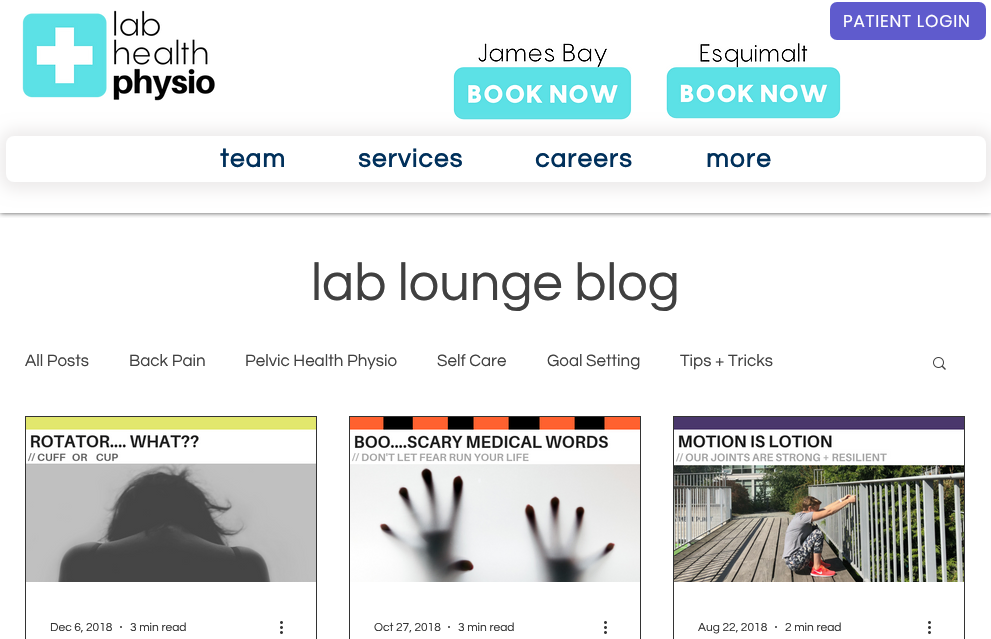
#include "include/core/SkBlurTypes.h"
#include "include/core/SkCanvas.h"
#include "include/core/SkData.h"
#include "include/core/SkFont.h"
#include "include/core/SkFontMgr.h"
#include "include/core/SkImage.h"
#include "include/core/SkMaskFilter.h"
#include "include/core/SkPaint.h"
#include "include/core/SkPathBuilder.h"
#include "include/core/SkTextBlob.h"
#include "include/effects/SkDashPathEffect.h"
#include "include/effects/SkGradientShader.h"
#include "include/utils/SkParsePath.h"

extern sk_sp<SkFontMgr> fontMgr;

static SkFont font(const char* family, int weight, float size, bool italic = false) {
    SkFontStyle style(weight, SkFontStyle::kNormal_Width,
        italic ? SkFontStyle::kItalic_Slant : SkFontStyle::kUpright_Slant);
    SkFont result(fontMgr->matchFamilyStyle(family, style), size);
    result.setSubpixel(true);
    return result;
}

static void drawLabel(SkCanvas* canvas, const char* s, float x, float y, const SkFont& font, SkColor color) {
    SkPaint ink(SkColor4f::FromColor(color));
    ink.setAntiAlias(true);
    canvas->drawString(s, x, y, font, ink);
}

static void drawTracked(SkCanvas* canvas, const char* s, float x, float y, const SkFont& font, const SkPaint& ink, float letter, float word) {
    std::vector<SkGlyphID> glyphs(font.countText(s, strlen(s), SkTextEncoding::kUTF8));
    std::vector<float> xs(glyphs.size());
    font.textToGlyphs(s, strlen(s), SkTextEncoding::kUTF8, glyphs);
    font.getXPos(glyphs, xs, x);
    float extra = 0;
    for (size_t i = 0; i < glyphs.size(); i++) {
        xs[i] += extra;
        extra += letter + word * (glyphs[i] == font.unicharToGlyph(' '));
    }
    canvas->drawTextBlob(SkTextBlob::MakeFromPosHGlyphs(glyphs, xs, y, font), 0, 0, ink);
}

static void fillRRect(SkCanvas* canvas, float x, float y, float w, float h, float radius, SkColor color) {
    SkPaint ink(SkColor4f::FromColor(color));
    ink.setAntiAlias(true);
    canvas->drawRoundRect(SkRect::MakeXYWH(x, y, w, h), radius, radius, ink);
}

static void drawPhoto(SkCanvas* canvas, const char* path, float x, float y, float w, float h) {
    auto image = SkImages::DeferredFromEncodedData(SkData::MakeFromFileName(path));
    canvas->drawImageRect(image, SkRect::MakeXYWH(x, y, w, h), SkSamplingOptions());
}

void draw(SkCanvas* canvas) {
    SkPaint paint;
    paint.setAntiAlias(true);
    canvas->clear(0xFFFFFFFF);
    canvas->save();
    canvas->clipRect(SkRect::MakeXYWH(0, 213, 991, 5));
    paint.setColor(0xB3000000);
    paint.setMaskFilter(SkMaskFilter::MakeBlur(kNormal_SkBlurStyle, 2.5f));
    canvas->drawRect(SkRect::MakeXYWH(0, 0, 991, 213), paint);
    paint.setMaskFilter(nullptr);
    canvas->restore();
    drawPhoto(canvas, "assets/img1.png", 22, 10, 193, 91);
    fillRRect(canvas, 830, 2, 156, 38, 7, 0xFF5F5BCD);
    SkFont font1 = font("Poppins", 400, 17);
    paint.setColor(0xFFFFFFFF);
    drawTracked(canvas, "PATIENT LOGIN", 843, 27, font1, paint, 0.8f, 0);
    drawPhoto(canvas, "assets/img2.png", 453, 43, 179, 77);
    drawPhoto(canvas, "assets/img3.png", 666, 43, 175, 76);
    paint.setColor(0xFFEDEBEB);
    paint.setMaskFilter(SkMaskFilter::MakeBlur(kNormal_SkBlurStyle, 7.5f));
    canvas->drawRoundRect(SkRect::MakeXYWH(0, 130, 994, 60), 15, 15, paint);
    paint.setMaskFilter(nullptr);
    fillRRect(canvas, 6, 136, 980, 46, 8, 0xFFFFFFFF);
    SkFont font2 = font("Questrial", 700, 26);
    paint.setColor(0xFF00305B);
    drawTracked(canvas, "team", 220, 167, font2, paint, 1.25f, 0);
    drawTracked(canvas, "services", 358, 167, font2, paint, 1.25f, 0);
    drawTracked(canvas, "careers", 535, 167, font2, paint, 1.25f, 0);
    drawTracked(canvas, "more", 706, 167, font2, paint, 1.25f, 0);
    SkFont font3 = font("Questrial", 400, 54);
    drawLabel(canvas, "lab lounge blog", 311, 300, font3, 0xFF404040);
    SkFont font4 = font("Questrial", 400, 17);
    drawLabel(canvas, "All Posts", 25, 366, font4, 0xFF404040);
    drawLabel(canvas, "Back Pain", 129, 366, font4, 0xFF404040);
    drawLabel(canvas, "Pelvic Health Physio", 245, 366, font4, 0xFF404040);
    drawLabel(canvas, "Self Care", 437, 366, font4, 0xFF404040);
    drawLabel(canvas, "Goal Setting", 547, 366, font4, 0xFF404040);
    drawLabel(canvas, "Tips + Tricks", 680, 366, font4, 0xFF404040);
    drawPhoto(canvas, "assets/img4.png", 933, 357, 13, 13);
    paint.setStroke(true);
    paint.setStrokeWidth(1);
    paint.setColor(0xFF333333);
    canvas->drawRect(SkRect::MakeXYWH(25.5f, 416.5f, 291, 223), paint);
    drawPhoto(canvas, "assets/img5.png", 26, 417, 290, 165);
    SkFont font5 = font("Questrial", 400, 12);
    drawLabel(canvas, "Dec 6, 2018", 50, 631, font5, 0xFF333333);
    paint.setStroke(false);
    canvas->drawCircle(121, 627, 1, paint);
    drawLabel(canvas, "3 min read", 130, 631, font5, 0xFF333333);
    drawPhoto(canvas, "assets/img6.png", 280, 621, 3, 13);
    paint.setStroke(true);
    canvas->drawRect(SkRect::MakeXYWH(349.5f, 416.5f, 291, 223), paint);
    drawPhoto(canvas, "assets/img7.png", 350, 417, 290, 165);
    drawLabel(canvas, "Oct 27, 2018", 374, 631, font5, 0xFF333333);
    paint.setStroke(false);
    canvas->drawCircle(449, 627, 1, paint);
    drawLabel(canvas, "3 min read", 458, 631, font5, 0xFF333333);
    drawPhoto(canvas, "assets/img6.png", 604, 621, 3, 13);
    paint.setStroke(true);
    canvas->drawRect(SkRect::MakeXYWH(673.5f, 416.5f, 291, 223), paint);
    drawPhoto(canvas, "assets/img8.png", 674, 417, 290, 165);
    drawLabel(canvas, "Aug 22, 2018", 698, 631, font5, 0xFF333333);
    paint.setStroke(false);
    canvas->drawCircle(776, 627, 1, paint);
    drawLabel(canvas, "2 min read", 785, 631, font5, 0xFF333333);
    drawPhoto(canvas, "assets/img6.png", 928, 621, 3, 13);
}
